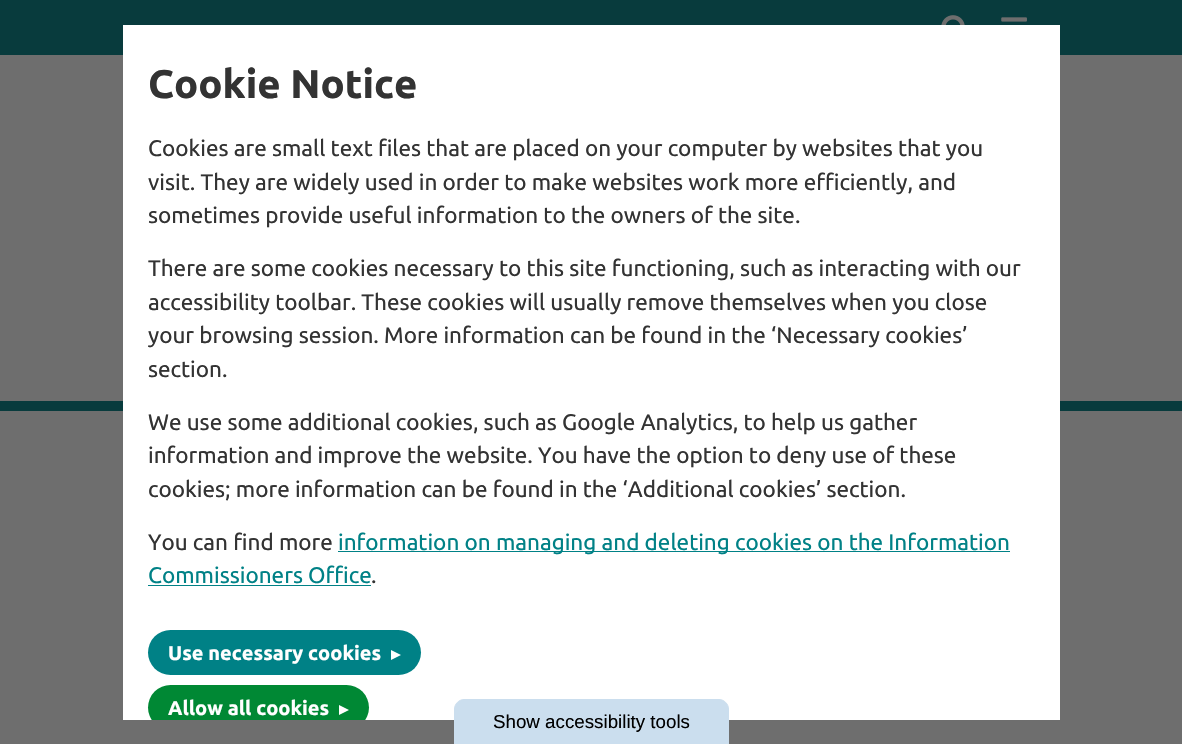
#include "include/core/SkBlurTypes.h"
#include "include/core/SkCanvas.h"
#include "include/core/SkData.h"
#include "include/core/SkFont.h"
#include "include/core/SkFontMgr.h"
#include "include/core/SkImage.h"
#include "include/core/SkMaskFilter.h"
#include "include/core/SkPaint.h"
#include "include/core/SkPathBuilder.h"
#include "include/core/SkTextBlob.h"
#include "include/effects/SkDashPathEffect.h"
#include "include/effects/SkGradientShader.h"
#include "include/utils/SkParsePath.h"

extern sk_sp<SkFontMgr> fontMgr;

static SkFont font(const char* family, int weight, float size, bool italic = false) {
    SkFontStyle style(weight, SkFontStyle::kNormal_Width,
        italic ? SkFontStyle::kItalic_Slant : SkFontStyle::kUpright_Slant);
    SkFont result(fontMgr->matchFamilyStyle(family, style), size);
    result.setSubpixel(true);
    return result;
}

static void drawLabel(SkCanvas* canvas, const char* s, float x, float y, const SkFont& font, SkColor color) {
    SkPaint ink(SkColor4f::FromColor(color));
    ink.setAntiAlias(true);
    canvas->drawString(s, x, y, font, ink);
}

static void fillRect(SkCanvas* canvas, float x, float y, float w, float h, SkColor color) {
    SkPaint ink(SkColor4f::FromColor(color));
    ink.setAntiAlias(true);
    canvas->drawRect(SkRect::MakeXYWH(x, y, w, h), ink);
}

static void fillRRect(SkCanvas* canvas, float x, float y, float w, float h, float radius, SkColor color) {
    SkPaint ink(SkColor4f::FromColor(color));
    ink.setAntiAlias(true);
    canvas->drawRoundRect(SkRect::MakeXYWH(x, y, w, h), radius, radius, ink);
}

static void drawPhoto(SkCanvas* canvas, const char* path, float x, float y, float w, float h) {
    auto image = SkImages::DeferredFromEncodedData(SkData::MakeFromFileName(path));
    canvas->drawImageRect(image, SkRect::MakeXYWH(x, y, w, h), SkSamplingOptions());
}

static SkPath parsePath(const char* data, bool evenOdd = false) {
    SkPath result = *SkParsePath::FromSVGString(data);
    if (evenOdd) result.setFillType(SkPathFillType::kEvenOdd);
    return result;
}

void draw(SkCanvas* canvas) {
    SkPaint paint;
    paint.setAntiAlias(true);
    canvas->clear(0xFF6E6E6E);
    fillRect(canvas, 0, 0, 1182, 55, 0xFF083B3D);
    drawPhoto(canvas, "assets/img1.png", 941, 15, 24, 10);
    drawPhoto(canvas, "assets/img2.png", 1001, 17, 26, 5);
    fillRect(canvas, 0, 401, 1182, 10, 0xFF083B3D);
    fillRect(canvas, 123, 25, 937, 695, 0xFFFFFFFF);
    SkFont font1 = font("Ubuntu", 700, 40);
    drawLabel(canvas, "Cookie Notice", 148, 98, font1, 0xFF333333);
    SkFont font2 = font("Ubuntu", 400, 22.5f);
    drawLabel(canvas, "Cookies are small text files that are placed on your computer by websites that you", 148, 156, font2, 0xFF333333);
    drawLabel(canvas, "visit. They are widely used in order to make websites work more efficiently, and", 148, 190, font2, 0xFF333333);
    drawLabel(canvas, "sometimes provide useful information to the owners of the site.", 148, 223, font2, 0xFF333333);
    drawLabel(canvas, "There are some cookies necessary to this site functioning, such as interacting with our", 148, 276, font2, 0xFF333333);
    drawLabel(canvas, "accessibility toolbar. These cookies will usually remove themselves when you close", 148, 310, font2, 0xFF333333);
    drawLabel(canvas, "your browsing session. More information can be found in the ‘Necessary cookies’", 148, 343, font2, 0xFF333333);
    drawLabel(canvas, "section.", 148, 377, font2, 0xFF333333);
    drawLabel(canvas, "We use some additional cookies, such as Google Analytics, to help us gather", 148, 430, font2, 0xFF333333);
    drawLabel(canvas, "information and improve the website. You have the option to deny use of these", 148, 463, font2, 0xFF333333);
    drawLabel(canvas, "cookies; more information can be found in the ‘Additional cookies’ section.", 148, 497, font2, 0xFF333333);
    drawLabel(canvas, "You can find more", 148, 550, font2, 0xFF333333);
    fillRect(canvas, 338, 551, 672, 1, 0xFF008186);
    drawLabel(canvas, "information on managing and deleting cookies on the Information", 338, 550, font2, 0xFF008186);
    drawLabel(canvas, "Commissioners Office", 148, 583, font2, 0xFF008186);
    fillRect(canvas, 148, 585, 223, 1, 0xFF008186);
    drawLabel(canvas, ".", 371, 583, font2, 0xFF333333);
    fillRRect(canvas, 148, 630, 273, 45, 22.5f, 0xFF008186);
    SkFont font3 = font("Ubuntu", 700, 20);
    drawLabel(canvas, "Use necessary cookies", 168, 660, font3, 0xFFFFFFFF);
    paint.setColor(0xFFFFFFFF);
    canvas->drawPath(parsePath("M391 660V650L401 655Z"), paint);
    canvas->save();
    canvas->clipRect(SkRect::MakeXYWH(123, 25, 937, 695));
    fillRRect(canvas, 148, 685, 221, 45, 22.5f, 0xFF008834);
    canvas->restore();
    drawLabel(canvas, "Allow all cookies", 168, 715, font3, 0xFFFFFFFF);
    canvas->drawPath(parsePath("M339 715V705L349 710Z"), paint);
    paint.setColor(0xFFCBDEEE);
    canvas->drawPath(parsePath("M464 699.5H719C724 699.5 728.5 704 728.5 709V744.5H454.5V709C454.5 704 459 699.5 464 699.5Z"), paint);
    paint.setStroke(true);
    paint.setStrokeWidth(1);
    canvas->drawPath(parsePath("M464 699.5H719C724 699.5 728.5 704 728.5 709V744.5H454.5V709C454.5 704 459 699.5 464 699.5Z"), paint);
    SkFont font4 = font("Liberation Sans", 400, 18.75f);
    drawLabel(canvas, "Show accessibility tools", 493, 728, font4, 0xFF000000);
}
